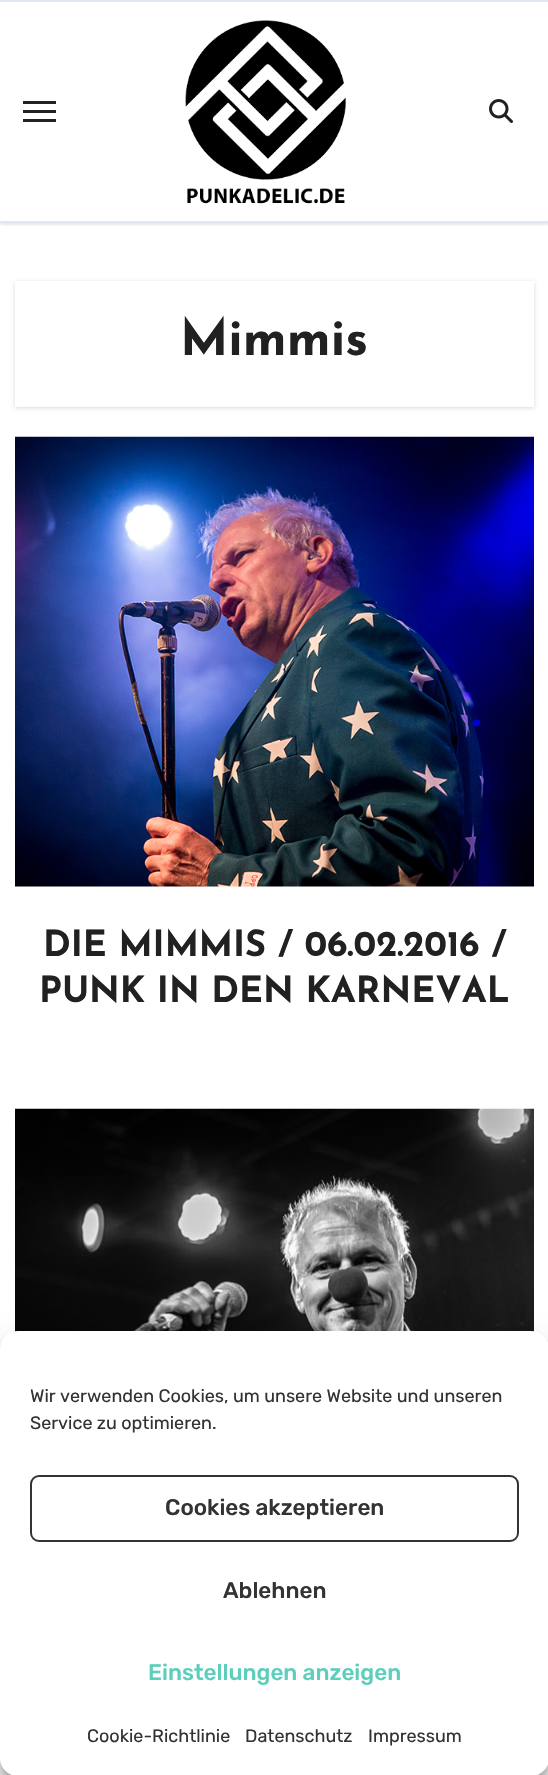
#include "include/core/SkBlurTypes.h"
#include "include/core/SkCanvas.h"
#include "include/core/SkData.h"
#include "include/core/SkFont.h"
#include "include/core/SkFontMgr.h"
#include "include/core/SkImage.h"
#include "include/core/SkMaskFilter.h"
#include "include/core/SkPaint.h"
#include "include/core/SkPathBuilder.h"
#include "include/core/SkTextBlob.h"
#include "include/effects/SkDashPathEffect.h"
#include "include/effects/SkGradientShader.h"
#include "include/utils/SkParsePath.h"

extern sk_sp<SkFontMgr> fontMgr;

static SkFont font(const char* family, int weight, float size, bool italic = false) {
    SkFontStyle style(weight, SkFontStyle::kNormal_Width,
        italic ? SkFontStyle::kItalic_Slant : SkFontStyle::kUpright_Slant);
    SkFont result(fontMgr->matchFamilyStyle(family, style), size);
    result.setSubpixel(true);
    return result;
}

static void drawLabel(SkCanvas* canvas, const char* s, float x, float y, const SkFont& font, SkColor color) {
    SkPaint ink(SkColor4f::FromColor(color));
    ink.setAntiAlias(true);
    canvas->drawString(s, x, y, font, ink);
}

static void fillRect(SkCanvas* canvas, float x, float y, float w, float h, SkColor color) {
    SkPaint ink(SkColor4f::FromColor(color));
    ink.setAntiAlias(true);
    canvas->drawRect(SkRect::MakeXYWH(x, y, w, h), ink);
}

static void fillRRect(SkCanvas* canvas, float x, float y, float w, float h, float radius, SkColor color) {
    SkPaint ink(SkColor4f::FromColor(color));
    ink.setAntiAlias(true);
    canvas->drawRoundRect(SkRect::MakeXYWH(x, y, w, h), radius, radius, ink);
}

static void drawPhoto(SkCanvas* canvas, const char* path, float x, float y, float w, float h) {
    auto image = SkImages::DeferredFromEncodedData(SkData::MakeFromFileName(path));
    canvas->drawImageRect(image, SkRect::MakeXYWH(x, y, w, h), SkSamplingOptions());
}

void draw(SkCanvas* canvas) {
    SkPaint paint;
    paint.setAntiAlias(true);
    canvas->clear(0xFFFFFFFF);
    canvas->save();
    canvas->clipRect(SkRect::MakeXYWH(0, 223, 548, 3));
    paint.setColor(0x26000000);
    paint.setMaskFilter(SkMaskFilter::MakeBlur(kNormal_SkBlurStyle, 2));
    canvas->drawRect(SkRect::MakeXYWH(0, 2, 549, 222), paint);
    paint.setMaskFilter(nullptr);
    canvas->restore();
    fillRect(canvas, 0, 0, 548, 2, 0xFFE2E8F0);
    fillRect(canvas, 0, 221, 548, 2, 0xFFE2E8F0);
    fillRect(canvas, 23, 101, 33, 3, 0xFF212121);
    fillRect(canvas, 23, 110, 33, 3, 0xFF212121);
    fillRect(canvas, 23, 119, 33, 3, 0xFF212121);
    drawPhoto(canvas, "assets/img1.png", 185, 20, 161, 184);
    drawPhoto(canvas, "assets/img2.png", 489, 99, 24, 24);
    paint.setMaskFilter(SkMaskFilter::MakeBlur(kNormal_SkBlurStyle, 2));
    canvas->drawRect(SkRect::MakeXYWH(15, 282, 519, 126), paint);
    paint.setMaskFilter(nullptr);
    fillRect(canvas, 15, 281, 519, 126, 0xFFFFFFFF);
    SkFont font1 = font("Josefin Sans", 700, 51);
    drawLabel(canvas, "Mimmis", 180, 355, font1, 0xFF212121);
    drawPhoto(canvas, "assets/img3.png", 15, 436, 519, 451);
    SkFont font2 = font("Josefin Sans", 700, 36);
    drawLabel(canvas, "DIE MIMMIS / 06.02.2016 /", 43, 956, font2, 0xFF212121);
    drawLabel(canvas, "PUNK IN DEN KARNEVAL", 39, 1002, font2, 0xFF212121);
    drawPhoto(canvas, "assets/img4.png", 15, 1108, 519, 224);
    paint.setColor(0x3B000000);
    paint.setMaskFilter(SkMaskFilter::MakeBlur(kNormal_SkBlurStyle, 4.5f));
    canvas->drawRoundRect(SkRect::MakeXYWH(0, 1340, 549, 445), 18, 18, paint);
    paint.setMaskFilter(nullptr);
    paint.setColor(0x30000000);
    paint.setMaskFilter(SkMaskFilter::MakeBlur(kNormal_SkBlurStyle, 15));
    canvas->drawRoundRect(SkRect::MakeXYWH(0, 1346, 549, 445), 18, 18, paint);
    paint.setMaskFilter(nullptr);
    fillRRect(canvas, 0, 1331, 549, 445, 18, 0xFFFFFFFF);
    SkFont font3 = font("Rubik", 400, 18);
    drawLabel(canvas, "Wir verwenden Cookies, um unsere Website und unseren", 30, 1402, font3, 0xFF333333);
    drawLabel(canvas, "Service zu optimieren.", 30, 1429, font3, 0xFF333333);
    paint.setStroke(true);
    paint.setStrokeWidth(2);
    paint.setColor(0xFF333333);
    canvas->drawRoundRect(SkRect::MakeXYWH(31, 1476, 487, 65), 8, 8, paint);
    SkFont font4 = font("Rubik", 500, 22.5f);
    drawLabel(canvas, "Cookies akzeptieren", 165, 1515, font4, 0xFF333333);
    drawLabel(canvas, "Ablehnen", 223, 1598, font4, 0xFF333333);
    drawLabel(canvas, "Einstellungen anzeigen", 148, 1680, font4, 0xFF5CCEBB);
    drawLabel(canvas, "Cookie-Richtlinie", 87, 1742, font3, 0xFF333333);
    drawLabel(canvas, "Datenschutz", 245, 1742, font3, 0xFF333333);
    drawLabel(canvas, "Impressum", 368, 1742, font3, 0xFF333333);
}
